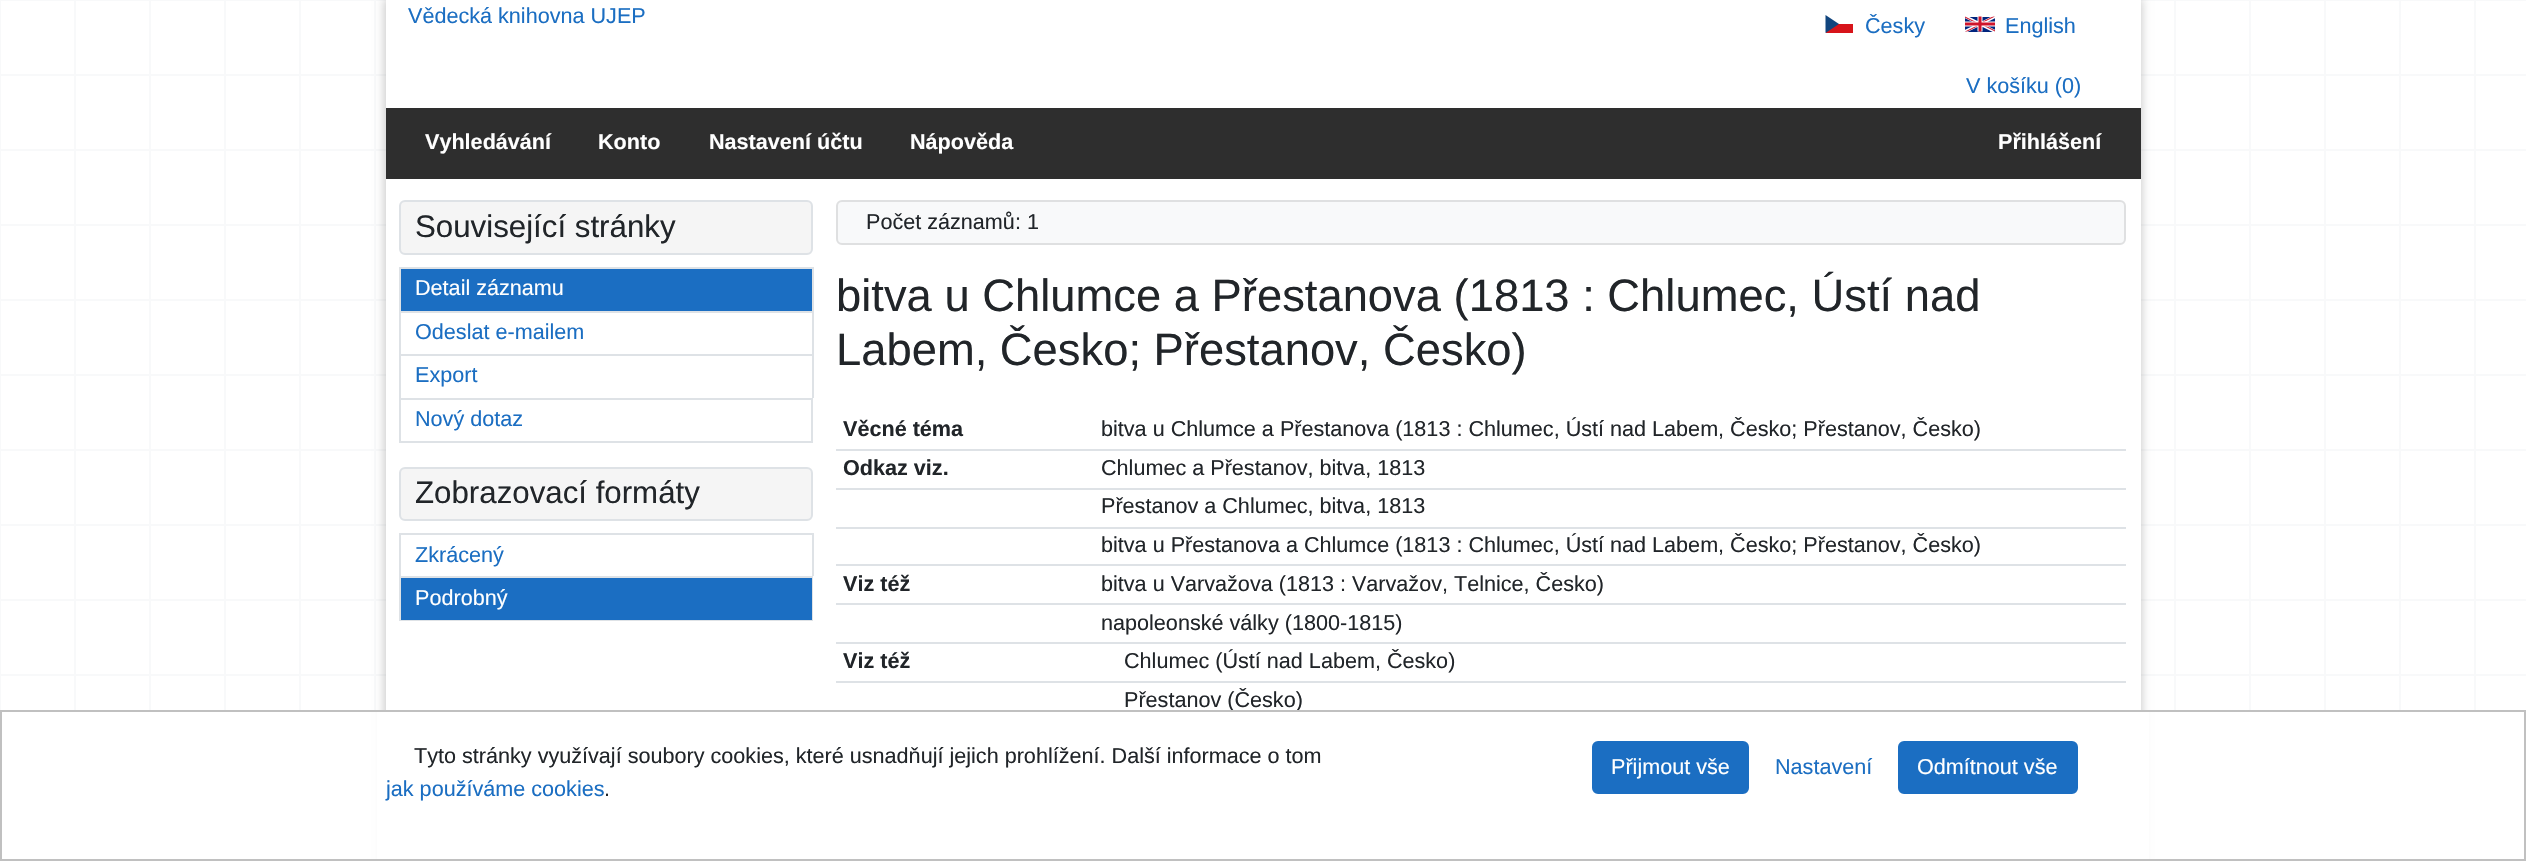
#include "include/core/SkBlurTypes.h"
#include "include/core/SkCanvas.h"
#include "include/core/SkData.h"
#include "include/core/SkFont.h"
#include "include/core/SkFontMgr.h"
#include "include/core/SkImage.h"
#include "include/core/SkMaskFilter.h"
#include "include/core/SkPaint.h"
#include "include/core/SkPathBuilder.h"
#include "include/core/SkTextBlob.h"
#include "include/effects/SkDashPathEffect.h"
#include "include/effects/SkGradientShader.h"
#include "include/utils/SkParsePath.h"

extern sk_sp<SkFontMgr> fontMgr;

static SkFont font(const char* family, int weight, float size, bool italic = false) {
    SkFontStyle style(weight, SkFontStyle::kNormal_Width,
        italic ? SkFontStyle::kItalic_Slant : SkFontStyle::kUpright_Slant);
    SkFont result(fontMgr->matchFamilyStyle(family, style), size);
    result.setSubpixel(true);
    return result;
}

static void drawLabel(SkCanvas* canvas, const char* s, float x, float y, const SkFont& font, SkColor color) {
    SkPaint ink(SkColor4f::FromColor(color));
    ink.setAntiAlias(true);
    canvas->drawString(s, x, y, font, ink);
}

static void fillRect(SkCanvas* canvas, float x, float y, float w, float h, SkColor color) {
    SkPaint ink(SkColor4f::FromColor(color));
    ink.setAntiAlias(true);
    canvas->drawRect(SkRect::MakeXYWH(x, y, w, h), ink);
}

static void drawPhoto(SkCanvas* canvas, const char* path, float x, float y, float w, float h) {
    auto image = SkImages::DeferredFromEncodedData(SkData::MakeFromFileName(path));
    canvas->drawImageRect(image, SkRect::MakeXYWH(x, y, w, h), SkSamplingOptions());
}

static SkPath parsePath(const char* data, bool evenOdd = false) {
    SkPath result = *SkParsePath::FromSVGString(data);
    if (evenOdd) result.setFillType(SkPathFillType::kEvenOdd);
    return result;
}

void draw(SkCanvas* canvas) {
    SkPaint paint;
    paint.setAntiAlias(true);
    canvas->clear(0xFFFFFFFF);
    drawPhoto(canvas, "assets/img1.png", 0, 1, 2476, 709);
    fillRect(canvas, 0, 0, 2526, 1, 0xFFF8F9FA);
    fillRect(canvas, 0, 74, 2526, 2, 0xFFF8F9FA);
    fillRect(canvas, 0, 149, 2526, 2, 0xFFF8F9FA);
    fillRect(canvas, 0, 224, 2526, 2, 0xFFF8F9FA);
    fillRect(canvas, 0, 299, 2526, 2, 0xFFF8F9FA);
    fillRect(canvas, 0, 374, 2526, 2, 0xFFF8F9FA);
    fillRect(canvas, 0, 449, 2526, 2, 0xFFF8F9FA);
    fillRect(canvas, 0, 524, 2526, 2, 0xFFF8F9FA);
    fillRect(canvas, 0, 599, 2526, 2, 0xFFF8F9FA);
    fillRect(canvas, 0, 674, 2526, 2, 0xFFF8F9FA);
    paint.setColor(0x33000000);
    paint.setMaskFilter(SkMaskFilter::MakeBlur(kNormal_SkBlurStyle, 4.5f));
    canvas->drawRect(SkRect::MakeXYWH(384, -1, 1758, 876), paint);
    paint.setMaskFilter(nullptr);
    fillRect(canvas, 386, 0, 1755, 710, 0xFFFFFFFF);
    SkFont font1 = font("Liberation Sans", 400, 21.6f);
    drawLabel(canvas, "Vědecká knihovna UJEP", 408, 23, font1, 0xFF1B6EC2);
    fillRect(canvas, 1826, 24, 27, 9, 0xFFD7141A);
    paint.setColor(0xFF11457E);
    canvas->drawPath(parsePath("M1839 24L1825.5 15V33Z"), paint);
    drawLabel(canvas, "Česky", 1865, 33, font1, 0xFF1B6EC2);
    drawPhoto(canvas, "assets/img2.png", 1965, 16, 30, 16);
    drawLabel(canvas, "English", 2005, 33, font1, 0xFF1B6EC2);
    drawLabel(canvas, "V košíku (0)", 1966, 93, font1, 0xFF1B6EC2);
    fillRect(canvas, 386, 108, 1755, 71, 0xFF2E2E2E);
    SkFont font2 = font("Liberation Sans", 700, 21.6f);
    drawLabel(canvas, "Vyhledávání", 425, 149, font2, 0xFFFFFFFF);
    drawLabel(canvas, "Konto", 598, 149, font2, 0xFFFFFFFF);
    drawLabel(canvas, "Nastavení účtu", 709, 149, font2, 0xFFFFFFFF);
    drawLabel(canvas, "Nápověda", 910, 149, font2, 0xFFFFFFFF);
    drawLabel(canvas, "Přihlášení", 1998, 149, font2, 0xFFFFFFFF);
    paint.setColor(0xFFF5F5F5);
    canvas->drawRoundRect(SkRect::MakeXYWH(400, 201, 412, 53), 5, 5, paint);
    paint.setStroke(true);
    paint.setStrokeWidth(2);
    paint.setColor(0xFFDEE2E6);
    canvas->drawRoundRect(SkRect::MakeXYWH(400, 201, 412, 53), 5, 5, paint);
    SkFont font3 = font("Liberation Sans", 400, 31.25f);
    drawLabel(canvas, "Související stránky", 415, 237, font3, 0xFF212529);
    fillRect(canvas, 399, 267, 414, 2, 0xFFDEE2E6);
    fillRect(canvas, 812, 267, 2, 44, 0xFFDEE2E6);
    fillRect(canvas, 399, 267, 2, 44, 0xFFDEE2E6);
    fillRect(canvas, 401, 269, 411, 42, 0xFF1B6EC2);
    drawLabel(canvas, "Detail záznamu", 415, 295, font1, 0xFFFFFFFF);
    fillRect(canvas, 399, 311, 414, 2, 0xFFDEE2E6);
    fillRect(canvas, 812, 311, 2, 43, 0xFFDEE2E6);
    fillRect(canvas, 399, 311, 2, 43, 0xFFDEE2E6);
    drawLabel(canvas, "Odeslat e-mailem", 415, 339, font1, 0xFF1B6EC2);
    fillRect(canvas, 399, 354, 414, 2, 0xFFDEE2E6);
    fillRect(canvas, 812, 354, 2, 44, 0xFFDEE2E6);
    fillRect(canvas, 399, 354, 2, 44, 0xFFDEE2E6);
    drawLabel(canvas, "Export", 415, 382, font1, 0xFF1B6EC2);
    canvas->drawRect(SkRect::MakeXYWH(400, 399, 412, 43), paint);
    drawLabel(canvas, "Nový dotaz", 415, 426, font1, 0xFF1B6EC2);
    paint.setStroke(false);
    paint.setColor(0xFFF5F5F5);
    canvas->drawRoundRect(SkRect::MakeXYWH(400, 468, 412, 52), 5, 5, paint);
    paint.setStroke(true);
    paint.setColor(0xFFDEE2E6);
    canvas->drawRoundRect(SkRect::MakeXYWH(400, 468, 412, 52), 5, 5, paint);
    drawLabel(canvas, "Zobrazovací formáty", 415, 503, font3, 0xFF212529);
    fillRect(canvas, 399, 533, 414, 2, 0xFFDEE2E6);
    fillRect(canvas, 812, 533, 2, 43, 0xFFDEE2E6);
    fillRect(canvas, 399, 533, 2, 43, 0xFFDEE2E6);
    drawLabel(canvas, "Zkrácený", 415, 562, font1, 0xFF1B6EC2);
    canvas->drawRect(SkRect::MakeXYWH(400, 577, 412, 43), paint);
    fillRect(canvas, 401, 578, 411, 42, 0xFF1B6EC2);
    drawLabel(canvas, "Podrobný", 415, 605, font1, 0xFFFFFFFF);
    paint.setStroke(false);
    paint.setColor(0xFFF8F9FA);
    canvas->drawRoundRect(SkRect::MakeXYWH(837, 201, 1288, 43), 5, 5, paint);
    paint.setStroke(true);
    paint.setColor(0xFFDFE0E1);
    canvas->drawRoundRect(SkRect::MakeXYWH(837, 201, 1288, 43), 5, 5, paint);
    drawLabel(canvas, "Počet záznamů: 1", 866, 229, font1, 0xFF212529);
    SkFont font4 = font("Liberation Sans", 400, 45.35f);
    drawLabel(canvas, "bitva u Chlumce a Přestanova (1813 : Chlumec, Ústí nad", 836, 311, font4, 0xFF212529);
    drawLabel(canvas, "Labem, Česko; Přestanov, Česko)", 836, 365, font4, 0xFF212529);
    drawLabel(canvas, "Věcné téma", 843, 436, font2, 0xFF212529);
    drawLabel(canvas, "bitva u Chlumce a Přestanova (1813 : Chlumec, Ústí nad Labem, Česko; Přestanov, Česko)", 1101, 436, font1, 0xFF212529);
    drawLabel(canvas, "Odkaz viz.", 843, 475, font2, 0xFF212529);
    fillRect(canvas, 836, 449, 1290, 2, 0xFFDEE2E6);
    drawLabel(canvas, "Chlumec a Přestanov, bitva, 1813", 1101, 475, font1, 0xFF212529);
    fillRect(canvas, 836, 488, 1290, 2, 0xFFDEE2E6);
    drawLabel(canvas, "Přestanov a Chlumec, bitva, 1813", 1101, 513, font1, 0xFF212529);
    fillRect(canvas, 836, 527, 1290, 2, 0xFFDEE2E6);
    drawLabel(canvas, "bitva u Přestanova a Chlumce (1813 : Chlumec, Ústí nad Labem, Česko; Přestanov, Česko)", 1101, 552, font1, 0xFF212529);
    drawLabel(canvas, "Viz též", 843, 591, font2, 0xFF212529);
    fillRect(canvas, 836, 564, 1290, 2, 0xFFDEE2E6);
    drawLabel(canvas, "bitva u Varvažova (1813 : Varvažov, Telnice, Česko)", 1101, 591, font1, 0xFF212529);
    fillRect(canvas, 836, 603, 1290, 2, 0xFFDEE2E6);
    drawLabel(canvas, "napoleonské války (1800-1815)", 1101, 630, font1, 0xFF212529);
    drawLabel(canvas, "Viz též", 843, 668, font2, 0xFF212529);
    fillRect(canvas, 836, 642, 1290, 2, 0xFFDEE2E6);
    drawLabel(canvas, "Chlumec (Ústí nad Labem, Česko)", 1124, 668, font1, 0xFF212529);
    fillRect(canvas, 836, 681, 1290, 2, 0xFFDEE2E6);
    drawLabel(canvas, "Přestanov (Česko)", 1124, 707, font1, 0xFF212529);
    fillRect(canvas, 377, 712, 1772, 147, 0xFFFFFFFF);
    paint.setColor(0xFFC0C0C0);
    canvas->drawRect(SkRect::MakeXYWH(1, 711, 2524, 149), paint);
    drawLabel(canvas, "Tyto stránky využívají soubory cookies, které usnadňují jejich prohlížení. Další informace o tom", 414, 763, font1, 0xFF212529);
    drawLabel(canvas, "jak používáme cookies", 386, 796, font1, 0xFF1B6EC2);
    drawLabel(canvas, ".", 604, 796, font1, 0xFF212529);
    paint.setStroke(false);
    paint.setColor(0xFF1B6EC2);
    canvas->drawRoundRect(SkRect::MakeXYWH(1593, 742, 155, 51), 5, 5, paint);
    paint.setStroke(true);
    canvas->drawRoundRect(SkRect::MakeXYWH(1593, 742, 155, 51), 5, 5, paint);
    drawLabel(canvas, "Přijmout vše", 1611, 774, font1, 0xFFFFFFFF);
    drawLabel(canvas, "Nastavení", 1775, 774, font1, 0xFF1B6EC2);
    paint.setStroke(false);
    canvas->drawRoundRect(SkRect::MakeXYWH(1899, 742, 178, 51), 5, 5, paint);
    paint.setStroke(true);
    canvas->drawRoundRect(SkRect::MakeXYWH(1899, 742, 178, 51), 5, 5, paint);
    drawLabel(canvas, "Odmítnout vše", 1917, 774, font1, 0xFFFFFFFF);
}
